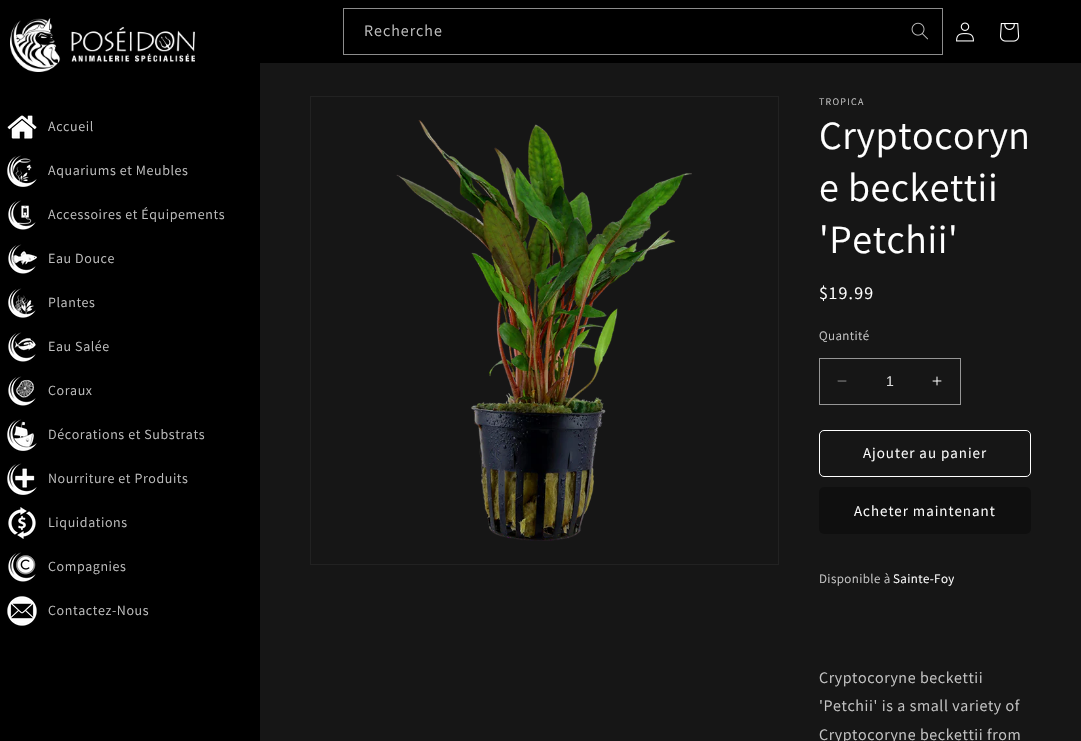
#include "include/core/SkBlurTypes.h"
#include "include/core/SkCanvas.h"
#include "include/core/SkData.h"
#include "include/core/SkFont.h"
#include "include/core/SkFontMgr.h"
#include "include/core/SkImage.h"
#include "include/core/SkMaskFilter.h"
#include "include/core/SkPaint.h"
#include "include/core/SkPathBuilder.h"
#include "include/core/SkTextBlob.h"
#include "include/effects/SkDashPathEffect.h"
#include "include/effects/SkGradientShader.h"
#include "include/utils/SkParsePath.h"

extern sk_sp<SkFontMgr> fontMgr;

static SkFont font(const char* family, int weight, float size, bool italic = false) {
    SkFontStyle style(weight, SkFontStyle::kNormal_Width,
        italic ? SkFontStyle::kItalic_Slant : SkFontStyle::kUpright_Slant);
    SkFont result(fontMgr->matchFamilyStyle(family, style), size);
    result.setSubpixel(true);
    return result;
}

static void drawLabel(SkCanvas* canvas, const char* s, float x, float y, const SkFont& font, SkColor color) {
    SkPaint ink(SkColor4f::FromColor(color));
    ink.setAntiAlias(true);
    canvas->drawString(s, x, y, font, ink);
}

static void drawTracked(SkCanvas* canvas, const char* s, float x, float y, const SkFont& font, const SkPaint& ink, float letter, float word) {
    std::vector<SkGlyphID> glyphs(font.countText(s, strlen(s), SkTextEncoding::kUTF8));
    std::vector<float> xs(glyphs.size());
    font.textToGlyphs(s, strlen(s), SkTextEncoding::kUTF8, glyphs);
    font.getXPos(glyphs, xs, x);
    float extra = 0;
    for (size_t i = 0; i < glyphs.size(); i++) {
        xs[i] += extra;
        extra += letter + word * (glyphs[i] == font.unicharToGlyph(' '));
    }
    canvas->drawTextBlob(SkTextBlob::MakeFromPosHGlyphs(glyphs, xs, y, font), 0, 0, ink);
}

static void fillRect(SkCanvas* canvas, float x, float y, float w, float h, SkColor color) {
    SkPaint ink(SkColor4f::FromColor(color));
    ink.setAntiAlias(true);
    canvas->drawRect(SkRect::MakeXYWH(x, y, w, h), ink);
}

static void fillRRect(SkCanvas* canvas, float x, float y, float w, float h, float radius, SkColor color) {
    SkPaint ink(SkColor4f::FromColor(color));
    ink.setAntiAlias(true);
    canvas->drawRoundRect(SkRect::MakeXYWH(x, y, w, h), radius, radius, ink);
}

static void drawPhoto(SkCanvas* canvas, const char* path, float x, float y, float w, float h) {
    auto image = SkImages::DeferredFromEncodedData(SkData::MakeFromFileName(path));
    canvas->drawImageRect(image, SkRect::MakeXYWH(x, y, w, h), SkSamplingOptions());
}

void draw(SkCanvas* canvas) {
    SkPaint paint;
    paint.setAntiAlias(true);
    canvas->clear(0xFF161616);
    fillRect(canvas, 260, 0, 821, 63, 0xFF000000);
    drawPhoto(canvas, "assets/img1.png", 911, 22, 17, 18);
    paint.setStroke(true);
    paint.setStrokeWidth(1);
    paint.setColor(0xFF8C8C8C);
    canvas->drawRect(SkRect::MakeXYWH(343.5f, 8.5f, 599, 46), paint);
    SkFont font1 = font("Assistant", 400, 16);
    paint.setStroke(false);
    paint.setColor(0xFFBFBFBF);
    drawTracked(canvas, "Recherche", 364, 36, font1, paint, 1, 0);
    drawPhoto(canvas, "assets/img2.png", 956, 22, 18, 20);
    drawPhoto(canvas, "assets/img3.png", 1000, 23, 20, 19);
    fillRect(canvas, 0, 0, 260, 741, 0xFF000000);
    drawPhoto(canvas, "assets/img4.png", 10, 18, 185, 54);
    drawPhoto(canvas, "assets/img5.png", 7, 115, 30, 24);
    SkFont font2 = font("Assistant", 400, 14);
    drawTracked(canvas, "Accueil", 48, 131, font2, paint, 0.6f, 0);
    drawPhoto(canvas, "assets/img6.png", 7, 155, 30, 32);
    drawTracked(canvas, "Aquariums et Meubles", 48, 175, font2, paint, 0.6f, 0);
    drawPhoto(canvas, "assets/img7.png", 8, 200, 28, 30);
    drawTracked(canvas, "Accessoires et Équipements", 48, 219, font2, paint, 0.6f, 0);
    drawPhoto(canvas, "assets/img8.png", 8, 244, 29, 30);
    drawTracked(canvas, "Eau Douce", 48, 263, font2, paint, 0.6f, 0);
    drawPhoto(canvas, "assets/img9.png", 8, 288, 28, 30);
    drawTracked(canvas, "Plantes", 48, 307, font2, paint, 0.6f, 0);
    drawPhoto(canvas, "assets/img10.png", 8, 332, 28, 30);
    drawTracked(canvas, "Eau Salée", 48, 351, font2, paint, 0.6f, 0);
    drawPhoto(canvas, "assets/img11.png", 8, 376, 28, 30);
    drawTracked(canvas, "Coraux", 48, 395, font2, paint, 0.6f, 0);
    drawPhoto(canvas, "assets/img12.png", 7, 419, 30, 32);
    drawTracked(canvas, "Décorations et Substrats", 48, 439, font2, paint, 0.6f, 0);
    drawPhoto(canvas, "assets/img13.png", 7, 463, 30, 32);
    drawTracked(canvas, "Nourriture et Produits", 48, 483, font2, paint, 0.6f, 0);
    drawPhoto(canvas, "assets/img14.png", 8, 507, 28, 32);
    drawTracked(canvas, "Liquidations", 48, 527, font2, paint, 0.6f, 0);
    drawPhoto(canvas, "assets/img15.png", 8, 552, 28, 30);
    drawTracked(canvas, "Compagnies", 48, 571, font2, paint, 0.6f, 0);
    drawPhoto(canvas, "assets/img16.png", 7, 596, 30, 30);
    drawTracked(canvas, "Contactez-Nous", 48, 615, font2, paint, 0.6f, 0);
    paint.setStroke(true);
    paint.setColor(0xFF222222);
    canvas->drawRect(SkRect::MakeXYWH(310.5f, 96.5f, 468, 468), paint);
    drawPhoto(canvas, "assets/img17.png", 396, 120, 296, 421);
    SkFont font3 = font("Assistant", 400, 10);
    paint.setStroke(false);
    paint.setColor(0xFFC5C5C5);
    drawTracked(canvas, "TROPICA", 819, 105, font3, paint, 1.25f, 0);
    SkFont font4 = font("Assistant", 400, 40);
    paint.setColor(0xFFFFFFFF);
    drawTracked(canvas, "Cryptocoryn", 819, 149, font4, paint, 0.6f, 0);
    drawTracked(canvas, "e beckettii", 819, 201, font4, paint, 0.6f, 0);
    drawTracked(canvas, "'Petchii'", 819, 253, font4, paint, 0.6f, 0);
    SkFont font5 = font("Assistant", 400, 18);
    drawTracked(canvas, "$19.99", 819, 299, font5, paint, 1.25f, 0);
    SkFont font6 = font("Assistant", 400, 13);
    paint.setColor(0xFFC5C5C5);
    drawTracked(canvas, "Quantité", 819, 340, font6, paint, 0.4f, 0);
    drawPhoto(canvas, "assets/img18.png", 837, 380, 10, 2);
    drawPhoto(canvas, "assets/img19.png", 932, 376, 10, 10);
    paint.setStroke(true);
    paint.setColor(0xFF969696);
    canvas->drawRect(SkRect::MakeXYWH(819.5f, 358.5f, 141, 46), paint);
    SkFont font7 = font("Liberation Sans", 400, 14);
    drawLabel(canvas, "1", 886, 386, font7, 0xFFDCDCDC);
    paint.setColor(0xFFFFFFFF);
    canvas->drawRoundRect(SkRect::MakeXYWH(819.5f, 430.5f, 211, 46), 4.5f, 4.5f, paint);
    SkFont font8 = font("Assistant", 400, 15);
    paint.setStroke(false);
    drawTracked(canvas, "Ajouter au panier", 863, 458, font8, paint, 1, 0);
    fillRRect(canvas, 819, 487, 212, 47, 5, 0xFF0F0F0F);
    drawTracked(canvas, "Acheter maintenant", 854, 516, font8, paint, 1, 0);
    paint.setColor(0xFFC5C5C5);
    drawTracked(canvas, "Disponible à", 819, 583, font6, paint, 0.4f, 0);
    paint.setColor(0xFFFFFFFF);
    drawTracked(canvas, "Sainte-Foy", 893, 583, font6, paint, 0.4f, 0);
    paint.setColor(0xFFC5C5C5);
    drawTracked(canvas, "Cryptocoryne beckettii", 819, 683, font1, paint, 0.6f, 0);
    drawTracked(canvas, "'Petchii' is a small variety of", 819, 711, font1, paint, 0.6f, 0);
    drawTracked(canvas, "Cryptocoryne beckettii from", 819, 740, font1, paint, 0.6f, 0);
}
